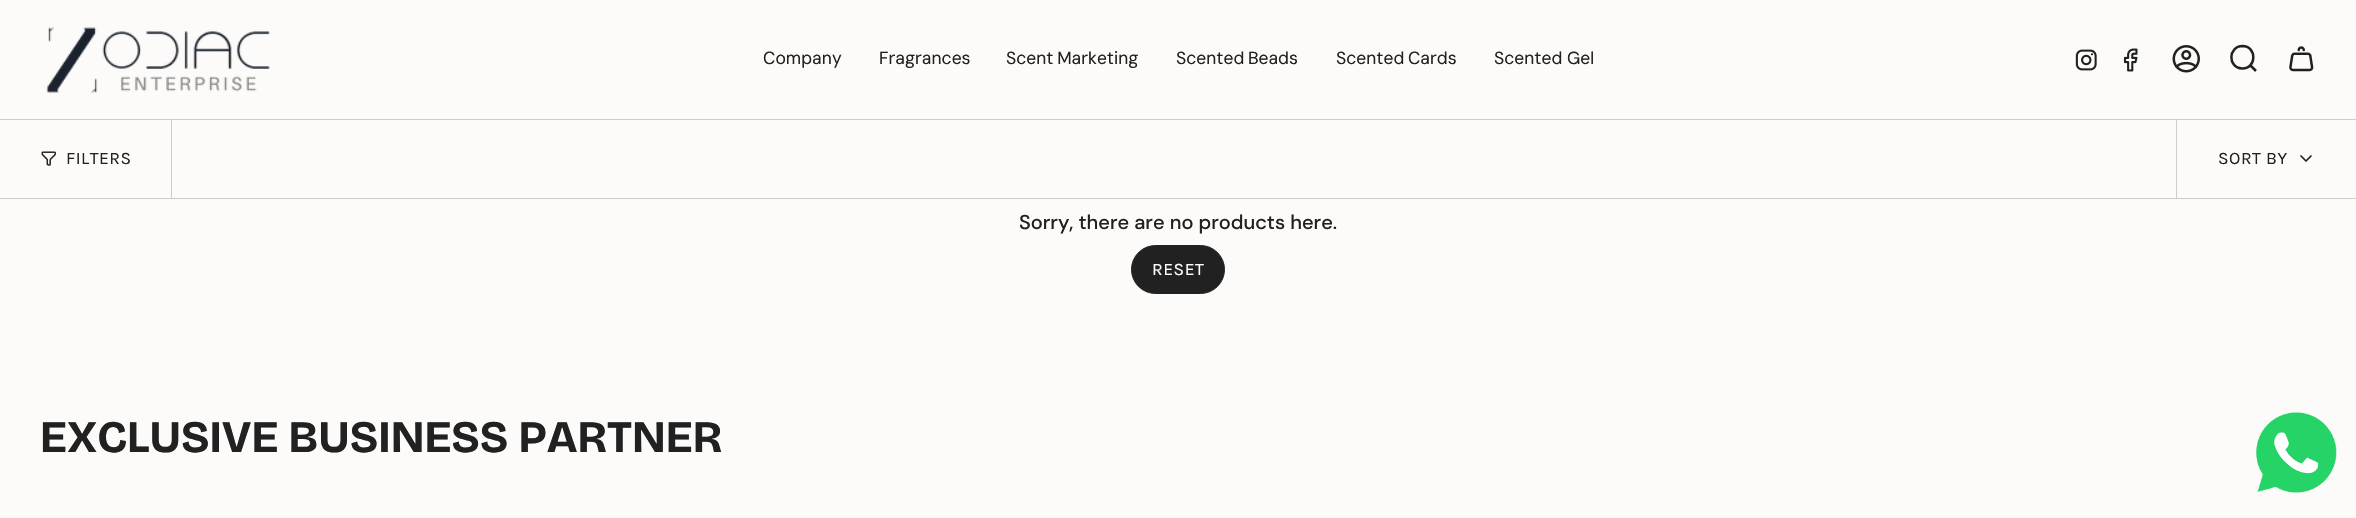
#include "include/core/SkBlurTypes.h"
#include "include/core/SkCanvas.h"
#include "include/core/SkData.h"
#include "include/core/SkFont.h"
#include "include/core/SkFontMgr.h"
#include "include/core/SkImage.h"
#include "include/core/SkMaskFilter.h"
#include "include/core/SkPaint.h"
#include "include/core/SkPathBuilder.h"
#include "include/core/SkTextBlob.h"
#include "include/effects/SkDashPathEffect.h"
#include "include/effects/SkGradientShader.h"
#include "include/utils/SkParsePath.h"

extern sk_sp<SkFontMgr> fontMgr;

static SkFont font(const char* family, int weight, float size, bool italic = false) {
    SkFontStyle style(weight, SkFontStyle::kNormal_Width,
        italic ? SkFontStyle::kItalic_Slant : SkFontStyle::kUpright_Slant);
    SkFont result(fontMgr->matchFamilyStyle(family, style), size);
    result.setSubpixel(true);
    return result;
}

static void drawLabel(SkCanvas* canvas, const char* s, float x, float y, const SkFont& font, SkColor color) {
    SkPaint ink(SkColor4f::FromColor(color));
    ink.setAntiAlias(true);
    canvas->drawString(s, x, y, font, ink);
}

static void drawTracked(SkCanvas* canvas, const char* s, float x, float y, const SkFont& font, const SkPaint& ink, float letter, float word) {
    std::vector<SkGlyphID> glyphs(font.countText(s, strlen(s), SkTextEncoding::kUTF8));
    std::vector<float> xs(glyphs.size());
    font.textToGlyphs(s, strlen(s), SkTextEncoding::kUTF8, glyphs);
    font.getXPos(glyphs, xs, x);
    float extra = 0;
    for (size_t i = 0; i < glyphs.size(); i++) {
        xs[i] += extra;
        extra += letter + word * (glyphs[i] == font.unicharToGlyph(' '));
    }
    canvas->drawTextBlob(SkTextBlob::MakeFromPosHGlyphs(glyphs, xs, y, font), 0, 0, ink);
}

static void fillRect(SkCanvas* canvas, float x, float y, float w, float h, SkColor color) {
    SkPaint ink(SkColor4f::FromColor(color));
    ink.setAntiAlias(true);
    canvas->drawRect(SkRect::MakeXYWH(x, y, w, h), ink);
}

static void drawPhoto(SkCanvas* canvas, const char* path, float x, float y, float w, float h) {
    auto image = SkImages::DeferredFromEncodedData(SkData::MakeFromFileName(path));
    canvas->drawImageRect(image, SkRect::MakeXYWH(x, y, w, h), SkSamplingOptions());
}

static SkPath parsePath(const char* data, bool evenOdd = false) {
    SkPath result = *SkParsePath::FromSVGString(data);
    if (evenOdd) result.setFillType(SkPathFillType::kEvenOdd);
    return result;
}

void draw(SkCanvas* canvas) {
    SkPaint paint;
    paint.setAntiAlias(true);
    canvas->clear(0xFFFCFBF9);
    drawPhoto(canvas, "assets/img1.png", 46, 27, 224, 66);
    SkFont font1 = font("DM Sans", 400, 17.5f);
    drawLabel(canvas, "Company", 763, 64, font1, 0xFF212121);
    drawLabel(canvas, "Fragrances", 879, 64, font1, 0xFF212121);
    paint.setColor(0xFF212121);
    drawTracked(canvas, "Scent Marketing", 1006, 64, font1, paint, 0, -1);
    drawTracked(canvas, "Scented Beads", 1176, 64, font1, paint, 0, -1);
    drawTracked(canvas, "Scented Cards", 1336, 64, font1, paint, 0, -1);
    drawLabel(canvas, "Scented Gel", 1494, 64, font1, 0xFF212121);
    drawPhoto(canvas, "assets/img2.png", 2075, 49, 22, 22);
    drawPhoto(canvas, "assets/img3.png", 2123, 48, 15, 24);
    drawPhoto(canvas, "assets/img4.png", 2172, 45, 28, 28);
    paint.setStroke(true);
    paint.setStrokeWidth(2.5f);
    canvas->drawPath(parsePath("M2242.5 46C2257 46 2257 69 2242 68.5C2227.5 67.5 2228 46.5 2242.5 46ZM2250 65L2256 71"), paint);
    drawPhoto(canvas, "assets/img5.png", 2289, 46, 25, 26);
    fillRect(canvas, 0, 119, 2356, 1, 0xFFD1CDC4);
    fillRect(canvas, 0, 198, 2356, 1, 0xFFD1CDC4);
    fillRect(canvas, 171, 120, 1, 78, 0xFFD1CDC4);
    drawPhoto(canvas, "assets/img6.png", 41, 151, 16, 15);
    SkFont font2 = font("Karla", 400, 17.5f);
    paint.setStroke(false);
    drawTracked(canvas, "FILTERS", 66, 164, font2, paint, 0.5f, 0);
    fillRect(canvas, 2176, 120, 1, 78, 0xFFD1CDC4);
    drawTracked(canvas, "SORT BY", 2218, 164, font2, paint, 0.5f, 0);
    paint.setStroke(true);
    paint.setStrokeWidth(1.7f);
    paint.setStrokeCap(SkPaint::kRound_Cap);
    paint.setStrokeJoin(SkPaint::kRound_Join);
    canvas->drawPath(parsePath("M2301 156L2306 161L2311 156"), paint);
    SkFont font3 = font("DM Sans", 500, 20);
    drawLabel(canvas, "Sorry, there are no products here.", 1019, 229, font3, 0xFF212121);
    paint.setStroke(false);
    canvas->drawRoundRect(SkRect::MakeXYWH(1131.5f, 245.5f, 93, 48), 24, 24, paint);
    paint.setStroke(true);
    paint.setStrokeWidth(1);
    paint.setStrokeCap(SkPaint::kButt_Cap);
    paint.setStrokeJoin(SkPaint::kMiter_Join);
    canvas->drawRoundRect(SkRect::MakeXYWH(1131.5f, 245.5f, 93, 48), 24, 24, paint);
    paint.setStroke(false);
    paint.setColor(0xFFFFFFFF);
    drawTracked(canvas, "RESET", 1152, 275, font2, paint, 0.5f, 0);
    SkFont font4 = font("Bricolage Grotesque", 700, 45);
    drawLabel(canvas, "EXCLUSIVE BUSINESS PARTNER", 40, 452, font4, 0xFF212121);
    drawPhoto(canvas, "assets/img7.png", 2256, 412, 81, 81);
}
